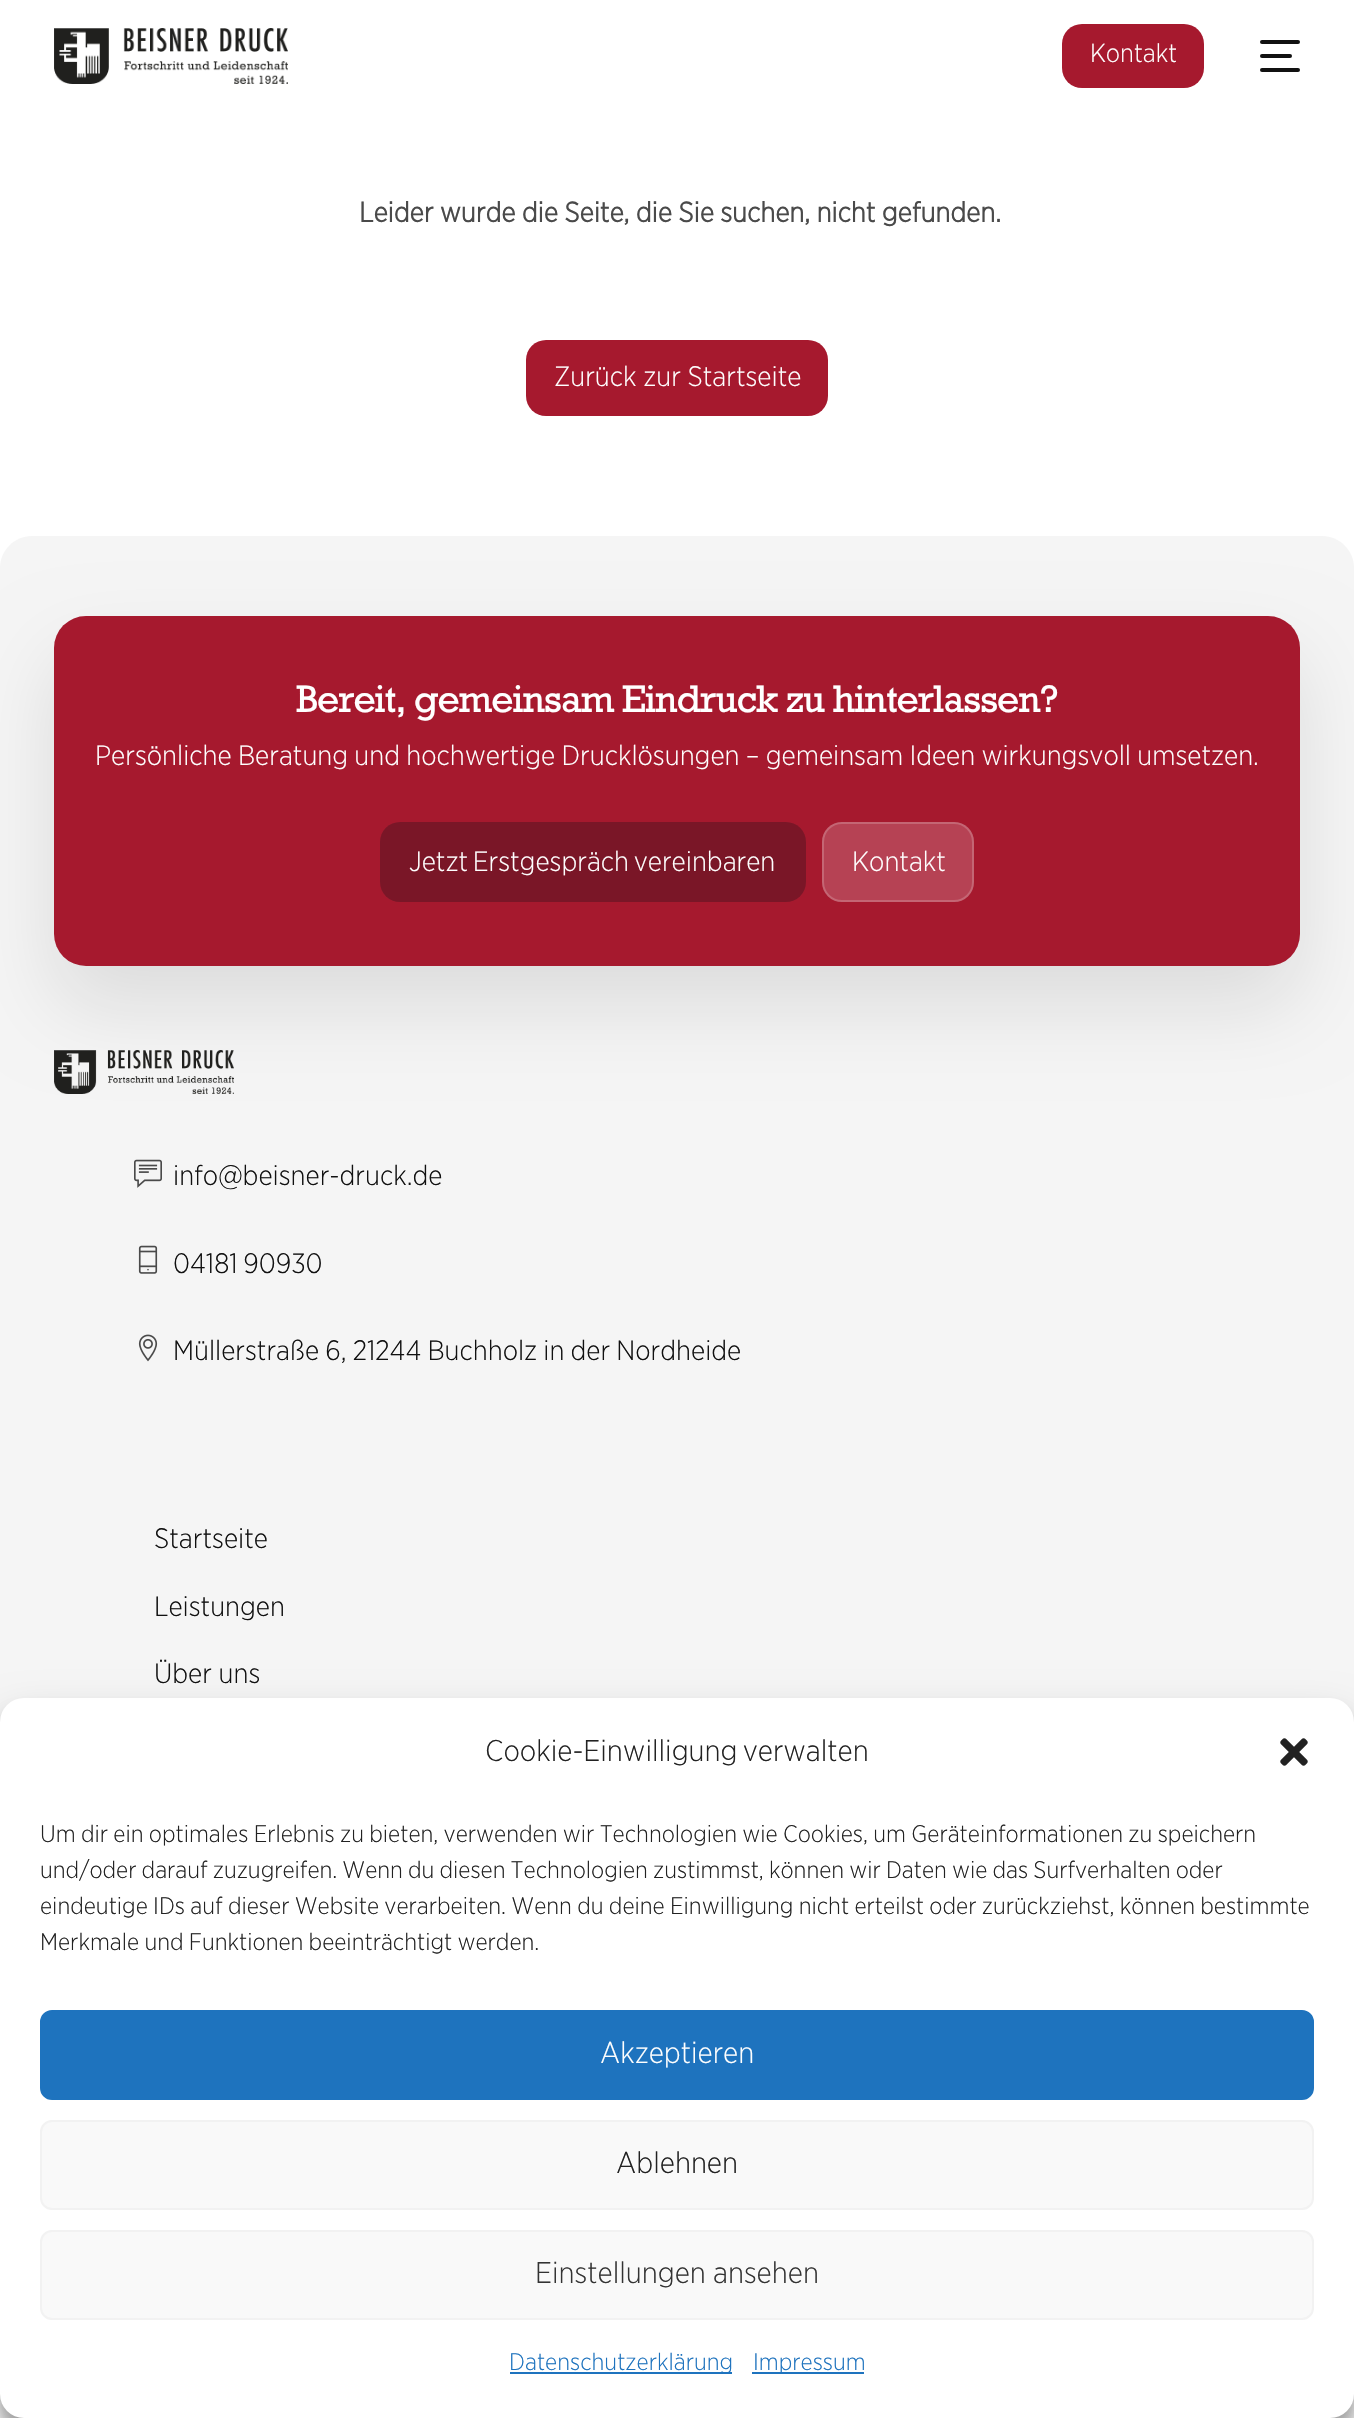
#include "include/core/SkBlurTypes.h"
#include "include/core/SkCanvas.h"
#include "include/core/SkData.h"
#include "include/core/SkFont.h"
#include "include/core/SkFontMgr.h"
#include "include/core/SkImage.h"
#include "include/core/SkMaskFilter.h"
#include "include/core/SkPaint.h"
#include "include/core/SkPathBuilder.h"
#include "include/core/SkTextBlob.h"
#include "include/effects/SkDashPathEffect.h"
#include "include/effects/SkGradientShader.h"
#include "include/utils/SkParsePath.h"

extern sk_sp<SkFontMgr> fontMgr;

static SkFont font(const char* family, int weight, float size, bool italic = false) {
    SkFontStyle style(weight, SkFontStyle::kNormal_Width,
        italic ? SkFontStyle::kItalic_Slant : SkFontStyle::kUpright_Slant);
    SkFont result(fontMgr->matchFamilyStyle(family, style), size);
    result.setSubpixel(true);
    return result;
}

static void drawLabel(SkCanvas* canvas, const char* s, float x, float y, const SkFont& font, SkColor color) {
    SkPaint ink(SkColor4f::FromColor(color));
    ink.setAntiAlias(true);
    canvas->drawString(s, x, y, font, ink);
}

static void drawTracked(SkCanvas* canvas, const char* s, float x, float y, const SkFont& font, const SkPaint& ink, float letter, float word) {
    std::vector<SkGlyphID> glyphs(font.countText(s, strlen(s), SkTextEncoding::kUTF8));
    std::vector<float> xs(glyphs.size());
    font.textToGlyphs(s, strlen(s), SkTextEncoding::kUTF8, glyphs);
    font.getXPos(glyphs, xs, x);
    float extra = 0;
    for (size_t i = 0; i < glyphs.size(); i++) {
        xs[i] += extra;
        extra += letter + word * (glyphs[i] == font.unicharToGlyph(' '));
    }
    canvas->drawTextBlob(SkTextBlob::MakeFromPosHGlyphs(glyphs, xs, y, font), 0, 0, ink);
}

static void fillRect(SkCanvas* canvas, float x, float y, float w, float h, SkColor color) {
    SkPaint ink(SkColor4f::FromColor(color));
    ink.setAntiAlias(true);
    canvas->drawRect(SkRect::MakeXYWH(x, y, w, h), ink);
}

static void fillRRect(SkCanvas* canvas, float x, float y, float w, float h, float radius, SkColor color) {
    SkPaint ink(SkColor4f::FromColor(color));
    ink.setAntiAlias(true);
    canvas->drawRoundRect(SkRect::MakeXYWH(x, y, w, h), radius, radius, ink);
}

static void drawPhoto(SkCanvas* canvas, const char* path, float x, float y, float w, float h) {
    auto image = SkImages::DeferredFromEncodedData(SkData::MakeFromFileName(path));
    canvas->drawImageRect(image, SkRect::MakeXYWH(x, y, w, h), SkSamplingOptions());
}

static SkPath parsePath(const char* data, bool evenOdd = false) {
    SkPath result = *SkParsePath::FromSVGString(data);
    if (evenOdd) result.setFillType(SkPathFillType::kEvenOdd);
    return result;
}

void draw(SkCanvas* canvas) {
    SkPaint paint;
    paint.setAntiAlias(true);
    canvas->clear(0xFFFFFFFF);
    drawPhoto(canvas, "assets/img1.png", 54, 28, 234, 56);
    fillRRect(canvas, 1062, 24, 142, 64, 20, 0xFFA6192E);
    SkFont font1 = font("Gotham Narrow", 300, 26);
    drawLabel(canvas, "Kontakt", 1090, 62, font1, 0xFFFFFFFF);
    fillRRect(canvas, 1260, 40, 40, 4, 2, 0xFF111111);
    fillRRect(canvas, 1260, 54, 32, 4, 2, 0xFF111111);
    fillRRect(canvas, 1260, 68, 40, 4, 2, 0xFF111111);
    SkFont font2 = font("Gotham Narrow", 700, 28);
    paint.setColor(0xFF4A4A4A);
    drawTracked(canvas, "Leider wurde die Seite, die Sie suchen, nicht gefunden.", 359, 222, font2, paint, 0, -0.25f);
    fillRRect(canvas, 526, 340, 302, 76, 20, 0xFFA6192E);
    SkFont font3 = font("Gotham Narrow", 300, 28);
    drawLabel(canvas, "Zurück zur Startseite", 554, 386, font3, 0xFFFFFFFF);
    paint.setColor(0xFFF5F5F5);
    canvas->drawPath(parsePath("M32 536H1322C1339.5 536 1354 550.5 1354 568V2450H0V568C0 550.5 14.5 536 32 536Z"), paint);
    paint.setColor(0x1A000000);
    paint.setMaskFilter(SkMaskFilter::MakeBlur(kNormal_SkBlurStyle, 40));
    canvas->drawRoundRect(SkRect::MakeXYWH(54, 656, 1246, 350), 32, 32, paint);
    paint.setMaskFilter(nullptr);
    fillRRect(canvas, 54, 616, 1246, 350, 32, 0xFFA6192E);
    SkFont font4 = font("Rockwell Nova", 400, 36);
    paint.setColor(0xFFFFFFFF);
    drawTracked(canvas, "Bereit, gemeinsam Eindruck zu hinterlassen?", 296, 712, font4, paint, -1.1f, 0);
    drawTracked(canvas, "Persönliche Beratung und hochwertige Drucklösungen – gemeinsam Ideen wirkungsvoll umsetzen.", 95, 765, font3, paint, 0, -0.4f);
    fillRRect(canvas, 380, 822, 426, 80, 20, 0xFF7A1627);
    drawTracked(canvas, "Jetzt Erstgespräch vereinbaren", 409, 871, font3, paint, 0, -2);
    fillRRect(canvas, 822, 822, 152, 80, 20, 0xFFB64254);
    paint.setStroke(true);
    paint.setStrokeWidth(2);
    paint.setColor(0x30FFFFFF);
    canvas->drawRoundRect(SkRect::MakeXYWH(823, 823, 150, 78), 19, 19, paint);
    drawLabel(canvas, "Kontakt", 852, 871, font3, 0xFFFFFFFF);
    drawPhoto(canvas, "assets/img2.png", 54, 1050, 180, 44);
    drawPhoto(canvas, "assets/img3.png", 134, 1159, 28, 29);
    drawLabel(canvas, "info@beisner-druck.de", 173, 1185, font3, 0xFF111111);
    drawPhoto(canvas, "assets/img4.png", 138, 1245, 20, 29);
    paint.setStroke(false);
    paint.setColor(0xFF111111);
    drawTracked(canvas, "04181 90930", 173, 1273, font3, paint, 0, -1);
    drawPhoto(canvas, "assets/img5.png", 138, 1334, 20, 28);
    drawTracked(canvas, "Müllerstraße 6, 21244 Buchholz in der Nordheide", 173, 1360, font3, paint, 0, -0.5f);
    drawLabel(canvas, "Startseite", 154, 1548, font3, 0xFF111111);
    drawLabel(canvas, "Leistungen", 154, 1616, font3, 0xFF111111);
    drawLabel(canvas, "Über uns", 154, 1683, font3, 0xFF111111);
    paint.setColor(0x3B000000);
    paint.setMaskFilter(SkMaskFilter::MakeBlur(kNormal_SkBlurStyle, 6));
    canvas->drawRoundRect(SkRect::MakeXYWH(0, 1710, 1354, 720), 24, 24, paint);
    paint.setMaskFilter(nullptr);
    paint.setColor(0x30000000);
    paint.setMaskFilter(SkMaskFilter::MakeBlur(kNormal_SkBlurStyle, 20));
    canvas->drawRoundRect(SkRect::MakeXYWH(0, 1718, 1354, 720), 24, 24, paint);
    paint.setMaskFilter(nullptr);
    fillRRect(canvas, 0, 1698, 1354, 720, 24, 0xFFFFFFFF);
    SkFont font5 = font("Gotham Narrow", 300, 30);
    paint.setColor(0xFF222222);
    drawTracked(canvas, "Cookie-Einwilligung verwalten", 485, 1761, font5, paint, 0, -2);
    drawPhoto(canvas, "assets/img6.png", 1280, 1738, 28, 28);
    SkFont font6 = font("Gotham Narrow", 300, 24);
    drawTracked(canvas, "Um dir ein optimales Erlebnis zu bieten, verwenden wir Technologien wie Cookies, um Geräteinformationen zu speichern", 40, 1842, font6, paint, 0, -0.4f);
    drawTracked(canvas, "und/oder darauf zuzugreifen. Wenn du diesen Technologien zustimmst, können wir Daten wie das Surfverhalten oder", 40, 1878, font6, paint, 0, -0.6f);
    drawTracked(canvas, "eindeutige IDs auf dieser Website verarbeiten. Wenn du deine Einwilligung nicht erteilst oder zurückziehst, können bestimmte", 40, 1914, font6, paint, 0, -0.4f);
    drawTracked(canvas, "Merkmale und Funktionen beeinträchtigt werden.", 40, 1950, font6, paint, 0, -0.5f);
    paint.setColor(0xFF1E73BE);
    canvas->drawRoundRect(SkRect::MakeXYWH(41, 2011, 1272, 88), 11, 11, paint);
    paint.setStroke(true);
    canvas->drawRoundRect(SkRect::MakeXYWH(41, 2011, 1272, 88), 11, 11, paint);
    drawLabel(canvas, "Akzeptieren", 600, 2063, font5, 0xFFFFFFFF);
    paint.setStroke(false);
    paint.setColor(0xFFF9F9F9);
    canvas->drawRoundRect(SkRect::MakeXYWH(41, 2121, 1272, 88), 11, 11, paint);
    paint.setStroke(true);
    paint.setColor(0xFFF2F2F2);
    canvas->drawRoundRect(SkRect::MakeXYWH(41, 2121, 1272, 88), 11, 11, paint);
    drawLabel(canvas, "Ablehnen", 616, 2173, font5, 0xFF222222);
    paint.setStroke(false);
    paint.setColor(0xFFF9F9F9);
    canvas->drawRoundRect(SkRect::MakeXYWH(41, 2231, 1272, 88), 11, 11, paint);
    paint.setStroke(true);
    paint.setColor(0xFFF2F2F2);
    canvas->drawRoundRect(SkRect::MakeXYWH(41, 2231, 1272, 88), 11, 11, paint);
    drawLabel(canvas, "Einstellungen ansehen", 535, 2283, font5, 0xFF333333);
    fillRect(canvas, 510, 2372, 222, 2, 0xFF1E73BE);
    drawLabel(canvas, "Datenschutzerklärung", 509, 2370, font6, 0xFF1E73BE);
    fillRect(canvas, 752, 2372, 112, 2, 0xFF1E73BE);
    drawLabel(canvas, "Impressum", 753, 2370, font6, 0xFF1E73BE);
}
